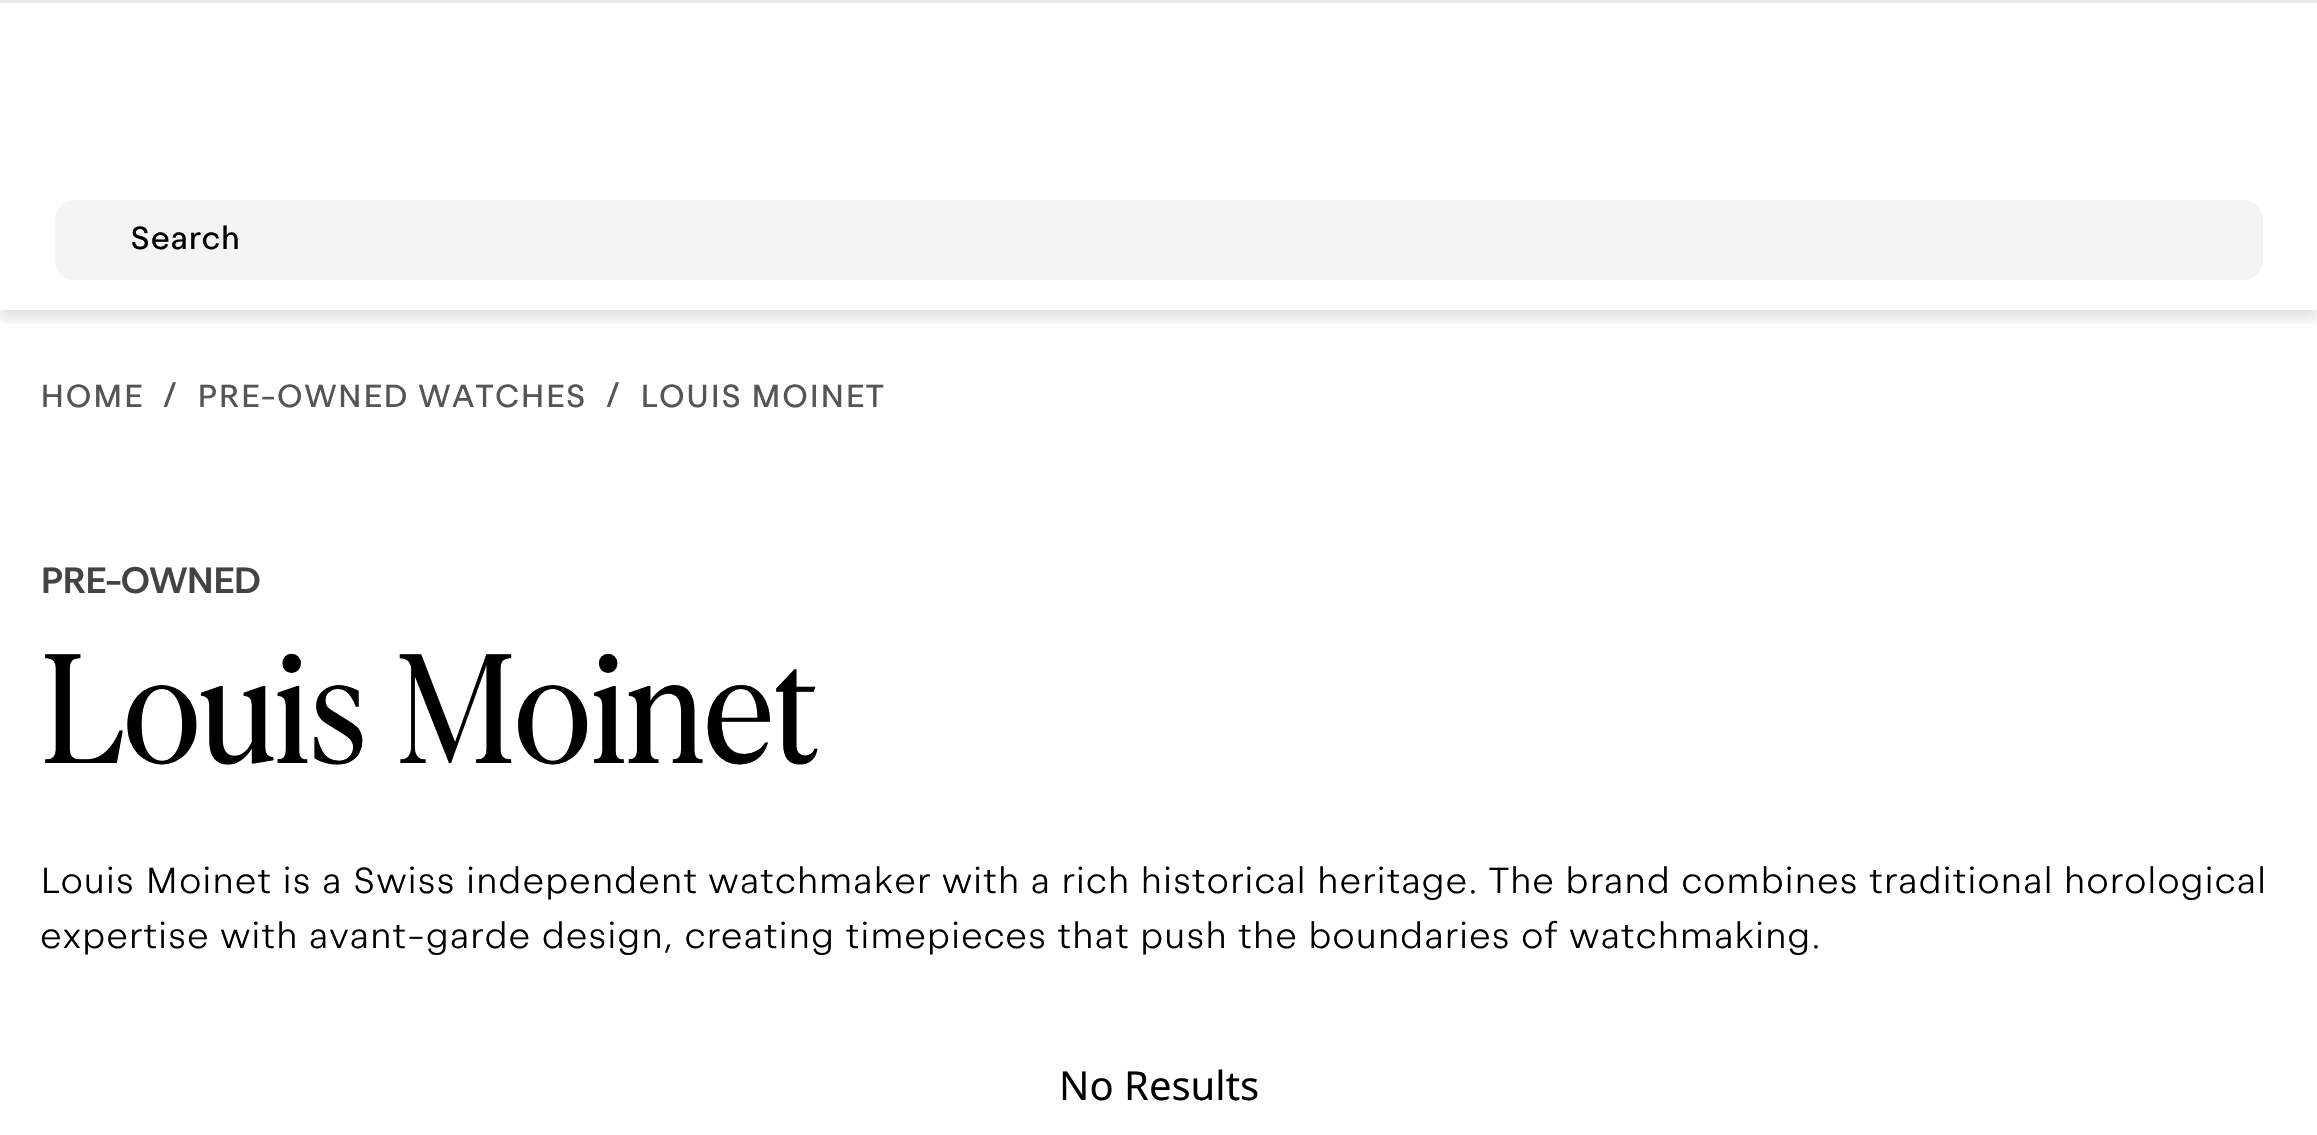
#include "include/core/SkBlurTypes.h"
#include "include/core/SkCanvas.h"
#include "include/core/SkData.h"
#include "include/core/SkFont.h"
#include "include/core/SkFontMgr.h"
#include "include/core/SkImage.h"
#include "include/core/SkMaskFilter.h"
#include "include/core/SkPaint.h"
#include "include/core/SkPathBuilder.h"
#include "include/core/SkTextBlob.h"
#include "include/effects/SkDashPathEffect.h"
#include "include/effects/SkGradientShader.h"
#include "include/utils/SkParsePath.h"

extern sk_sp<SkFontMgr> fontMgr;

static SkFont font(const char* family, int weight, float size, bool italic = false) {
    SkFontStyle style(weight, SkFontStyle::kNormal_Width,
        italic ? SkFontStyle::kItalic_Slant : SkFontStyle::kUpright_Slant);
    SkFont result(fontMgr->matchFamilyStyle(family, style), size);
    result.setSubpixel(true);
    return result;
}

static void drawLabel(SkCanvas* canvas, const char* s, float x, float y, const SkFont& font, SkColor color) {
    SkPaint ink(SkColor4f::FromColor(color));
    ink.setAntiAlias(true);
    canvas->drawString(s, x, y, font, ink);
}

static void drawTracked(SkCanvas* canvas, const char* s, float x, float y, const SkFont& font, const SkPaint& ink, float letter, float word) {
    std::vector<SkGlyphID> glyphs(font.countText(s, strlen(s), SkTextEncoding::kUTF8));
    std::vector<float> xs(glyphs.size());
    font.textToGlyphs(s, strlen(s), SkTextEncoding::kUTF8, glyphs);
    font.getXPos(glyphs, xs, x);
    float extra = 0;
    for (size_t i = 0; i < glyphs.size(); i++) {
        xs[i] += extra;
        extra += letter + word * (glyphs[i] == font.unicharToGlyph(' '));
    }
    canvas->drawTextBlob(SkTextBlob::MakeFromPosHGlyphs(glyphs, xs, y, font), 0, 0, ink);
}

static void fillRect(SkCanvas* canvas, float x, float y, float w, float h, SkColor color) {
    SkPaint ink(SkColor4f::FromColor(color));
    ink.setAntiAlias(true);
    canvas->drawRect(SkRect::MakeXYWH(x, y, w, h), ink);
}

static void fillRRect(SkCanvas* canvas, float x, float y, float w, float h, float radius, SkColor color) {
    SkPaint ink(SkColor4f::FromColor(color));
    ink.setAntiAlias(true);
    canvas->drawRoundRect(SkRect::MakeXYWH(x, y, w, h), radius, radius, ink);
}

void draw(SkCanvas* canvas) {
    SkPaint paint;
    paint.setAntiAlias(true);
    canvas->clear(0xFFFFFFFF);
    canvas->save();
    canvas->clipRect(SkRect::MakeXYWH(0, 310, 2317, 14));
    paint.setColor(0x1A000000);
    paint.setMaskFilter(SkMaskFilter::MakeBlur(kNormal_SkBlurStyle, 5));
    canvas->drawRect(SkRect::MakeXYWH(0, 10, 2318, 310), paint);
    paint.setMaskFilter(nullptr);
    canvas->restore();
    fillRect(canvas, 0, 0, 2317, 3, 0xFFE9E9E9);
    fillRRect(canvas, 55, 200, 2208, 80, 20, 0xFFF4F4F4);
    SkFont font1 = font("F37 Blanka", 400, 35);
    paint.setColor(0xFF000000);
    drawTracked(canvas, "Search", 130, 249, font1, paint, 0.5f, 0);
    paint.setColor(0xFF555555);
    drawTracked(canvas, "HOME", 40, 407, font1, paint, 0.75f, 0);
    drawTracked(canvas, "/", 163, 407, font1, paint, 0.75f, 0);
    drawTracked(canvas, "PRE-OWNED WATCHES", 197, 407, font1, paint, 0.75f, 0);
    drawTracked(canvas, "/", 606, 407, font1, paint, 0.75f, 0);
    drawTracked(canvas, "LOUIS MOINET", 640, 407, font1, paint, 0.75f, 0);
    SkFont font2 = font("F37 Blanka", 500, 40);
    paint.setColor(0xFF434343);
    drawTracked(canvas, "PRE-OWNED", 40, 593, font2, paint, -2, 0);
    SkFont font3 = font("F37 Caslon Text", 400, 167.5f);
    paint.setColor(0xFF000000);
    drawTracked(canvas, "Louis Moinet", 40, 763, font3, paint, -3.4f, 0);
    SkFont font4 = font("F37 Blanka", 300, 40);
    drawTracked(canvas, "Louis Moinet is a Swiss independent watchmaker with a rich historical heritage. The brand combines traditional horological", 40, 893, font4, paint, 0.8f, 0);
    drawTracked(canvas, "expertise with avant-garde design, creating timepieces that push the boundaries of watchmaking.", 40, 948, font4, paint, 0.8f, 0);
    SkFont font5 = font("Noto Sans", 400, 40);
    drawLabel(canvas, "No Results", 1059, 1100, font5, 0xFF000000);
}
